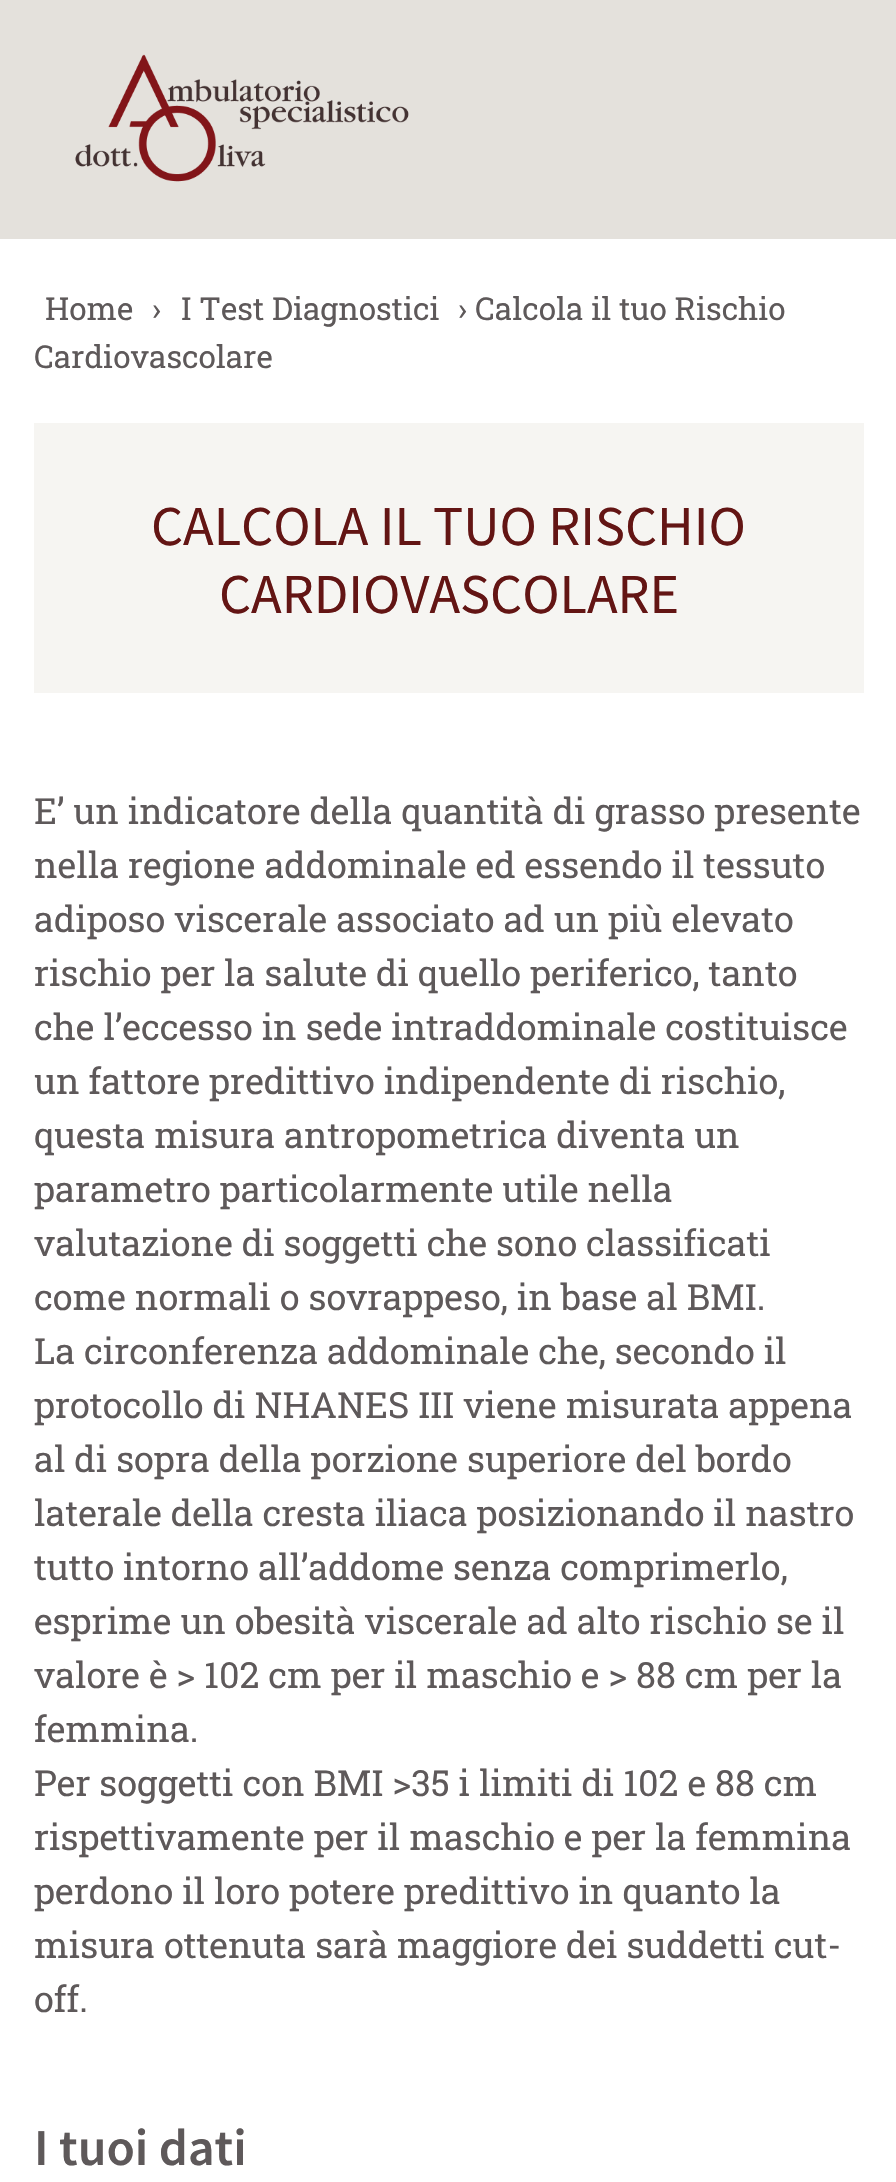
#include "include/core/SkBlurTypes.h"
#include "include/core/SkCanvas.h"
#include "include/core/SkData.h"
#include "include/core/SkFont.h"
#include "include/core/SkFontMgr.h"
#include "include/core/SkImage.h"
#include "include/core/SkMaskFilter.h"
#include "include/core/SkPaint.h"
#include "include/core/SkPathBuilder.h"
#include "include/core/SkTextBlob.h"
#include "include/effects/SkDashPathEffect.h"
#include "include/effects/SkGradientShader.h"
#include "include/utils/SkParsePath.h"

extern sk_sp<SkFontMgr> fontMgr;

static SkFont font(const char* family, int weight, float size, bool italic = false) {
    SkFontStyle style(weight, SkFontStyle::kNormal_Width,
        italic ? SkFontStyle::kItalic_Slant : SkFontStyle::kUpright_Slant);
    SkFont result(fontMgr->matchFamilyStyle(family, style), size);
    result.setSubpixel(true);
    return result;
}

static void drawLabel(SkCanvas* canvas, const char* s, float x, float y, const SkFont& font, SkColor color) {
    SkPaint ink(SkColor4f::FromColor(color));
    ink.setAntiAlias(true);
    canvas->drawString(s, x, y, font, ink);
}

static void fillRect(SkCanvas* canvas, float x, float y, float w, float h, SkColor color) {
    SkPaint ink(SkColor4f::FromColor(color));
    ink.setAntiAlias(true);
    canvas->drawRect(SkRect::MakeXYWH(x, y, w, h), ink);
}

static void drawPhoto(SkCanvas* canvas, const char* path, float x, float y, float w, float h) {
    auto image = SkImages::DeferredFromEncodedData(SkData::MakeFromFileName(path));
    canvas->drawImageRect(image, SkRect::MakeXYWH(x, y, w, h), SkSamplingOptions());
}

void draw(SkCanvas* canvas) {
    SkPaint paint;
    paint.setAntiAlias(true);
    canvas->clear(0xFFFFFFFF);
    fillRect(canvas, 0, 0, 896, 239, 0xFFE4E1DC);
    drawPhoto(canvas, "assets/img1.png", 75, 54, 334, 128);
    SkFont font1 = font("Roboto Slab", 400, 31.5f);
    drawLabel(canvas, "Home", 45, 320, font1, 0xFF5E595A);
    drawLabel(canvas, "›", 152, 320, font1, 0xFF5E595A);
    drawLabel(canvas, "I Test Diagnostici", 181, 320, font1, 0xFF5E595A);
    drawLabel(canvas, "› Calcola il tuo Rischio", 458, 320, font1, 0xFF5E595A);
    drawLabel(canvas, "Cardiovascolare", 34, 368, font1, 0xFF5E595A);
    fillRect(canvas, 34, 423, 830, 270, 0xFFF6F5F2);
    SkFont font2 = font("Source Sans Pro", 400, 56.25f);
    drawLabel(canvas, "CALCOLA IL TUO RISCHIO", 151, 545, font2, 0xFF631514);
    drawLabel(canvas, "CARDIOVASCOLARE", 219, 613, font2, 0xFF631514);
    SkFont font3 = font("Roboto Slab", 400, 36);
    drawLabel(canvas, "E’ un indicatore della quantità di grasso presente", 34, 824, font3, 0xFF5E595A);
    drawLabel(canvas, "nella regione addominale ed essendo il tessuto", 34, 878, font3, 0xFF5E595A);
    drawLabel(canvas, "adiposo viscerale associato ad un più elevato", 34, 932, font3, 0xFF5E595A);
    drawLabel(canvas, "rischio per la salute di quello periferico, tanto", 34, 986, font3, 0xFF5E595A);
    drawLabel(canvas, "che l’eccesso in sede intraddominale costituisce", 34, 1040, font3, 0xFF5E595A);
    drawLabel(canvas, "un fattore predittivo indipendente di rischio,", 34, 1094, font3, 0xFF5E595A);
    drawLabel(canvas, "questa misura antropometrica diventa un", 34, 1148, font3, 0xFF5E595A);
    drawLabel(canvas, "parametro particolarmente utile nella", 34, 1202, font3, 0xFF5E595A);
    drawLabel(canvas, "valutazione di soggetti che sono classificati", 34, 1256, font3, 0xFF5E595A);
    drawLabel(canvas, "come normali o sovrappeso, in base al BMI.", 34, 1310, font3, 0xFF5E595A);
    drawLabel(canvas, "La circonferenza addominale che, secondo il", 34, 1364, font3, 0xFF5E595A);
    drawLabel(canvas, "protocollo di NHANES III viene misurata appena", 34, 1418, font3, 0xFF5E595A);
    drawLabel(canvas, "al di sopra della porzione superiore del bordo", 34, 1472, font3, 0xFF5E595A);
    drawLabel(canvas, "laterale della cresta iliaca posizionando il nastro", 34, 1526, font3, 0xFF5E595A);
    drawLabel(canvas, "tutto intorno all’addome senza comprimerlo,", 34, 1580, font3, 0xFF5E595A);
    drawLabel(canvas, "esprime un obesità viscerale ad alto rischio se il", 34, 1634, font3, 0xFF5E595A);
    drawLabel(canvas, "valore è > 102 cm per il maschio e > 88 cm per la", 34, 1688, font3, 0xFF5E595A);
    drawLabel(canvas, "femmina.", 34, 1742, font3, 0xFF5E595A);
    drawLabel(canvas, "Per soggetti con BMI >35 i limiti di 102 e 88 cm", 34, 1796, font3, 0xFF5E595A);
    drawLabel(canvas, "rispettivamente per il maschio e per la femmina", 34, 1850, font3, 0xFF5E595A);
    drawLabel(canvas, "perdono il loro potere predittivo in quanto la", 34, 1904, font3, 0xFF5E595A);
    drawLabel(canvas, "misura ottenuta sarà maggiore dei suddetti cut-", 34, 1958, font3, 0xFF5E595A);
    drawLabel(canvas, "off.", 34, 2012, font3, 0xFF5E595A);
    SkFont font4 = font("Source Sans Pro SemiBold", 600, 51.75f);
    drawLabel(canvas, "I tuoi dati", 34, 2165, font4, 0xFF5E595A);
}
